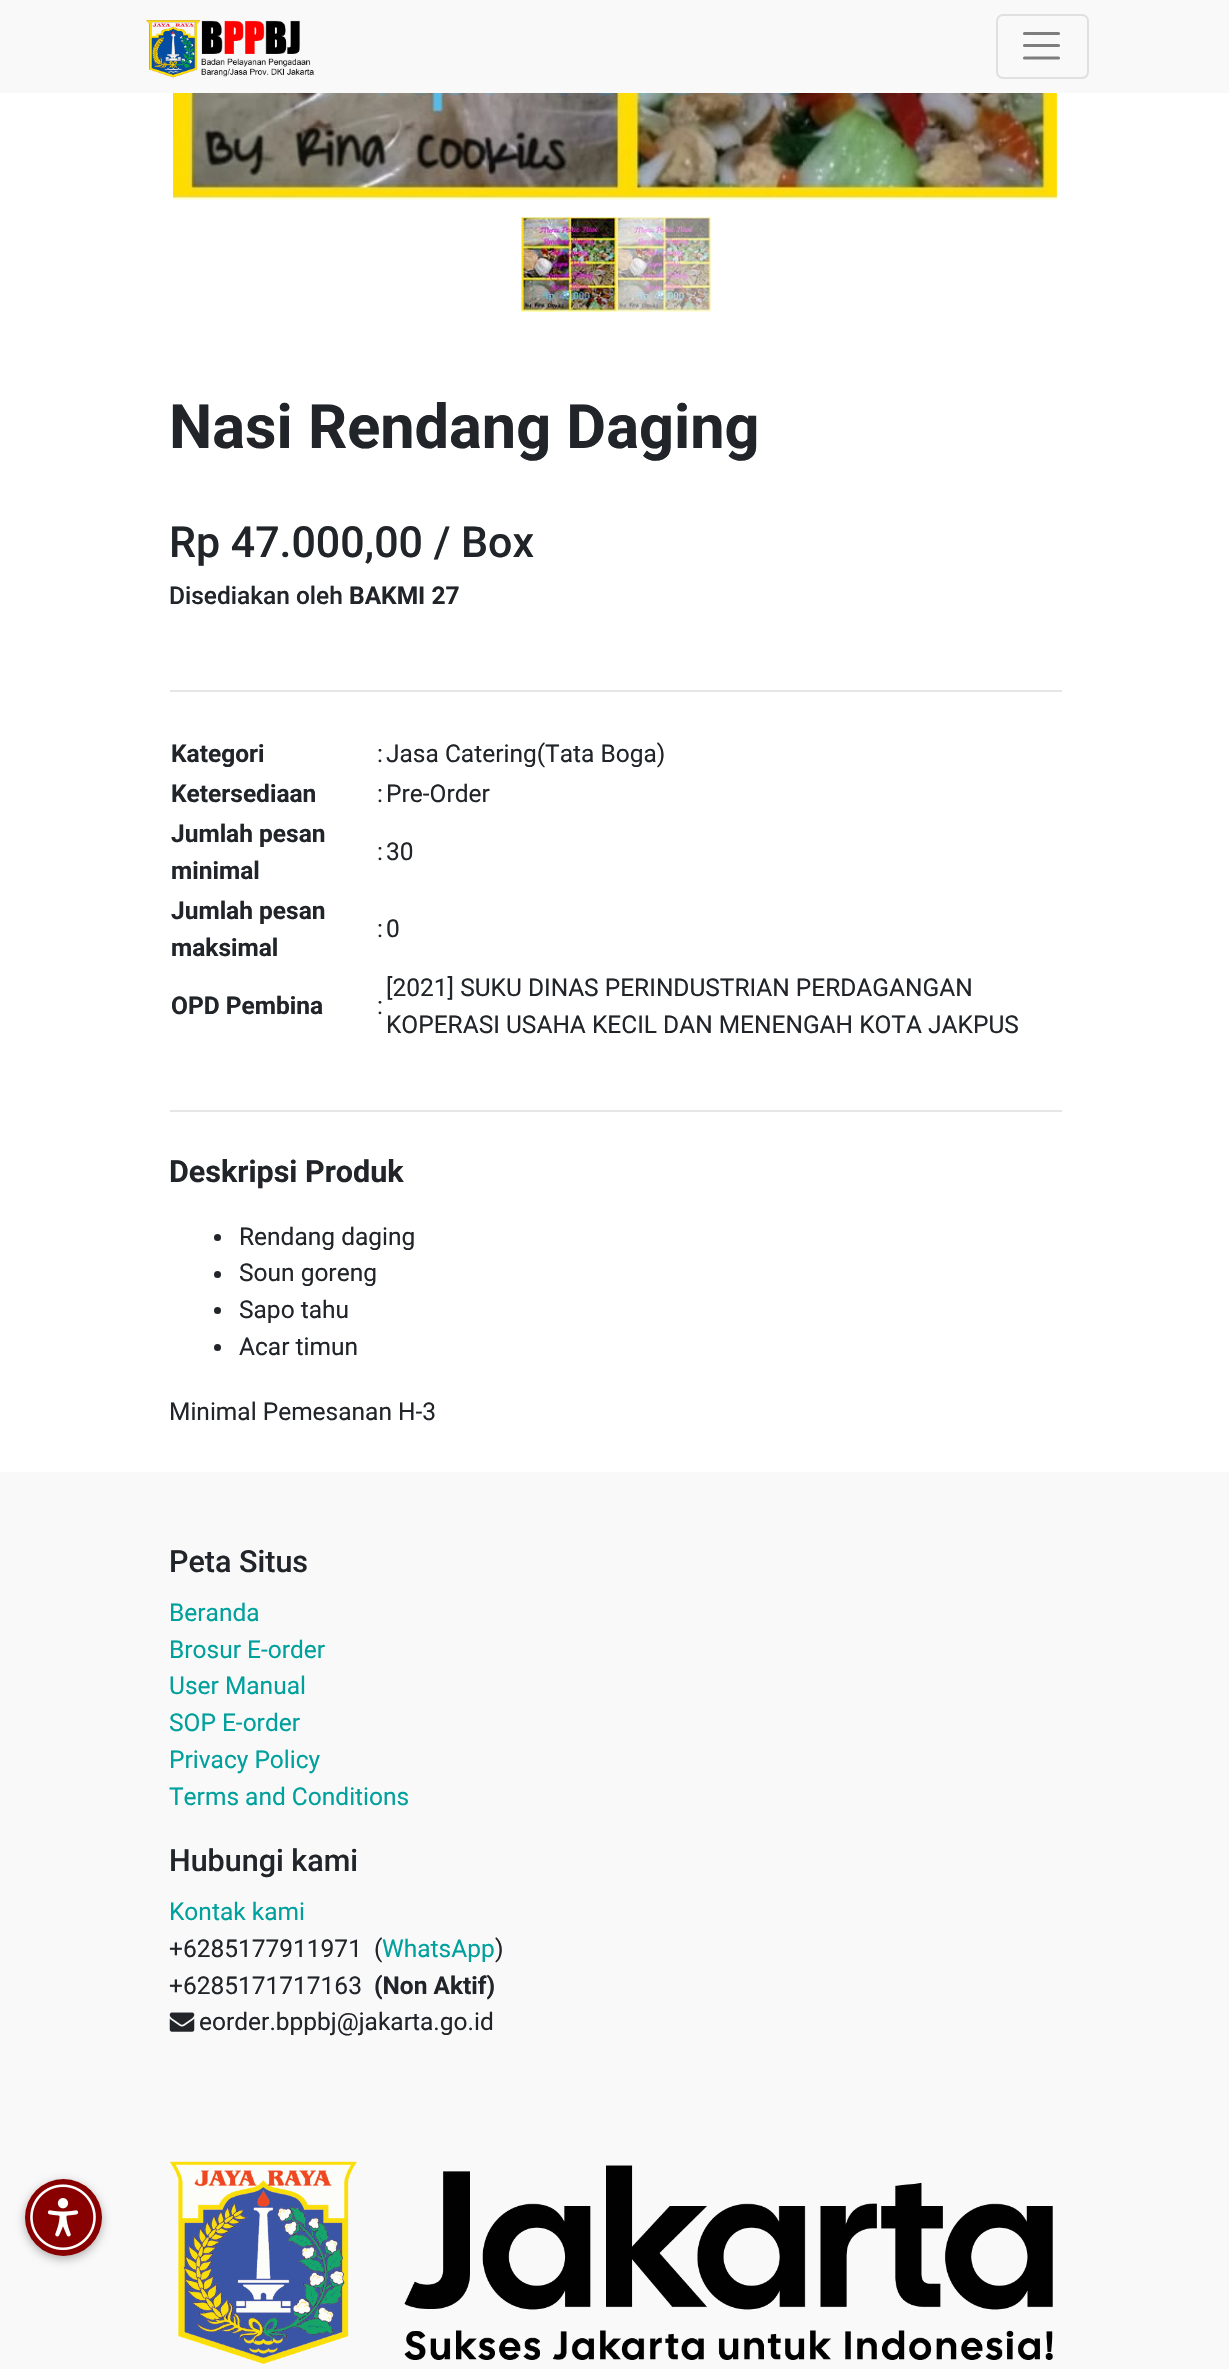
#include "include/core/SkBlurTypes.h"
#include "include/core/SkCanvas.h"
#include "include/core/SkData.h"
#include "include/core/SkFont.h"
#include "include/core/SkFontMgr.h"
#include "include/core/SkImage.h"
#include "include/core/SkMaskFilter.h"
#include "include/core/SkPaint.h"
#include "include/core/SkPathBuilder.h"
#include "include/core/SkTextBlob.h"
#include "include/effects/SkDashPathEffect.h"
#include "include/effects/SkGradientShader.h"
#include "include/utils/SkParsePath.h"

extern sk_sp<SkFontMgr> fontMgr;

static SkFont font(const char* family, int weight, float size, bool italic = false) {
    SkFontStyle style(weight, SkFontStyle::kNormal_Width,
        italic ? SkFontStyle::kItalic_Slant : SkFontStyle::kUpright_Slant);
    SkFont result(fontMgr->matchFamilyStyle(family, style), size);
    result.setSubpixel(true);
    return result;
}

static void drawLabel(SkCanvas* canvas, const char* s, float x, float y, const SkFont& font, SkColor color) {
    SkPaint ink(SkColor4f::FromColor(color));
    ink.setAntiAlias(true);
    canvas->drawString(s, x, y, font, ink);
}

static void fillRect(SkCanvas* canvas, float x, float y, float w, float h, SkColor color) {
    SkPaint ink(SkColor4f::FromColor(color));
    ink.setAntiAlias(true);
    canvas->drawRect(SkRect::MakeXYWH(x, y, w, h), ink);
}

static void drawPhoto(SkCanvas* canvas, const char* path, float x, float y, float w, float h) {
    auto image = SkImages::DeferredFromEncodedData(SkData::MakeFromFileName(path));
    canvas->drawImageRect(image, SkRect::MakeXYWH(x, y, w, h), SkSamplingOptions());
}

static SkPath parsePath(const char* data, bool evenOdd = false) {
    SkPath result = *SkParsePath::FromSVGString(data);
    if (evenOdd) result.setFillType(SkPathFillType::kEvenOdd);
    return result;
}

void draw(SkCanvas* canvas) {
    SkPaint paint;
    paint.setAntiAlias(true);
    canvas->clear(0xFFFFFFFF);
    fillRect(canvas, 0, 0, 1229, 93, 0xFFF9F9F9);
    drawPhoto(canvas, "assets/img1.png", 146, 20, 168, 58);
    paint.setStroke(true);
    paint.setStrokeWidth(2);
    paint.setColor(0xFFE0E0E0);
    canvas->drawRoundRect(SkRect::MakeXYWH(997, 15, 91, 63), 6, 6, paint);
    paint.setStrokeWidth(3.1f);
    paint.setStrokeCap(SkPaint::kRound_Cap);
    paint.setColor(0xFF7D7D7D);
    canvas->drawPath(parsePath("M1024.5 33.5H1058.5M1024.5 45.5H1058.5M1024.5 58H1058.5"), paint);
    drawPhoto(canvas, "assets/img2.png", 173, 93, 884, 107);
    drawPhoto(canvas, "assets/img3.png", 521, 217, 95, 95);
    drawPhoto(canvas, "assets/img4.png", 616, 217, 95, 95);
    SkFont font1 = font("Roboto", 700, 61.25f);
    drawLabel(canvas, "Nasi Rendang Daging", 169, 448, font1, 0xFF212529);
    SkFont font2 = font("Roboto", 500, 42.9f);
    drawLabel(canvas, "Rp 47.000,00 / Box", 169, 557, font2, 0xFF212529);
    SkFont font3 = font("Roboto", 500, 24.5f);
    drawLabel(canvas, "Disediakan oleh", 169, 604, font3, 0xFF212529);
    SkFont font4 = font("Roboto", 700, 24.5f);
    drawLabel(canvas, "BAKMI 27", 349, 604, font4, 0xFF212529);
    fillRect(canvas, 170, 690, 892, 2, 0xFFE6E6E6);
    drawLabel(canvas, "Kategori", 171, 762, font4, 0xFF212529);
    SkFont font5 = font("Roboto", 400, 24.5f);
    drawLabel(canvas, ":", 377, 762, font5, 0xFF212529);
    drawLabel(canvas, "Jasa Catering(Tata Boga)", 386, 762, font5, 0xFF212529);
    drawLabel(canvas, "Ketersediaan", 171, 802, font4, 0xFF212529);
    drawLabel(canvas, ":", 377, 802, font5, 0xFF212529);
    drawLabel(canvas, "Pre-Order", 386, 802, font5, 0xFF212529);
    drawLabel(canvas, "Jumlah pesan", 171, 842, font4, 0xFF212529);
    drawLabel(canvas, "minimal", 171, 879, font4, 0xFF212529);
    drawLabel(canvas, ":", 377, 860, font5, 0xFF212529);
    drawLabel(canvas, "30", 386, 860, font5, 0xFF212529);
    drawLabel(canvas, "Jumlah pesan", 171, 919, font4, 0xFF212529);
    drawLabel(canvas, "maksimal", 171, 956, font4, 0xFF212529);
    drawLabel(canvas, ":", 377, 937, font5, 0xFF212529);
    drawLabel(canvas, "0", 386, 937, font5, 0xFF212529);
    drawLabel(canvas, "OPD Pembina", 171, 1014, font4, 0xFF212529);
    drawLabel(canvas, ":", 377, 1014, font5, 0xFF212529);
    drawLabel(canvas, "[2021] SUKU DINAS PERINDUSTRIAN PERDAGANGAN", 386, 996, font5, 0xFF212529);
    drawLabel(canvas, "KOPERASI USAHA KECIL DAN MENENGAH KOTA JAKPUS", 386, 1033, font5, 0xFF212529);
    fillRect(canvas, 170, 1110, 892, 2, 0xFFE6E6E6);
    SkFont font6 = font("Roboto", 700, 30.5f);
    drawLabel(canvas, "Deskripsi Produk", 169, 1182, font6, 0xFF212529);
    paint.setStroke(false);
    paint.setColor(0xFF212529);
    canvas->drawCircle(217.5f, 1237.5f, 3.5f, paint);
    drawLabel(canvas, "Rendang daging", 239, 1245, font5, 0xFF212529);
    canvas->drawCircle(217.5f, 1274.5f, 3.5f, paint);
    drawLabel(canvas, "Soun goreng", 239, 1281, font5, 0xFF212529);
    canvas->drawCircle(217.5f, 1310.5f, 3.5f, paint);
    drawLabel(canvas, "Sapo tahu", 239, 1318, font5, 0xFF212529);
    canvas->drawCircle(217.5f, 1347.5f, 3.5f, paint);
    drawLabel(canvas, "Acar timun", 239, 1355, font5, 0xFF212529);
    drawLabel(canvas, "Minimal Pemesanan H-3", 169, 1420, font5, 0xFF212529);
    fillRect(canvas, 0, 1472, 1229, 897, 0xFFF9F9F9);
    SkFont font7 = font("Roboto", 500, 30.5f);
    drawLabel(canvas, "Peta Situs", 169, 1572, font7, 0xFF212529);
    drawLabel(canvas, "Beranda", 169, 1621, font5, 0xFF00A09D);
    drawLabel(canvas, "Brosur E-order", 169, 1658, font5, 0xFF00A09D);
    drawLabel(canvas, "User Manual", 169, 1694, font5, 0xFF00A09D);
    drawLabel(canvas, "SOP E-order", 169, 1731, font5, 0xFF00A09D);
    drawLabel(canvas, "Privacy Policy", 169, 1768, font5, 0xFF00A09D);
    drawLabel(canvas, "Terms and Conditions", 169, 1805, font5, 0xFF00A09D);
    drawLabel(canvas, "Hubungi kami", 169, 1871, font7, 0xFF212529);
    drawLabel(canvas, "Kontak kami", 169, 1920, font5, 0xFF00A09D);
    drawLabel(canvas, "+6285177911971", 169, 1957, font5, 0xFF212529);
    drawLabel(canvas, "(", 374, 1957, font5, 0xFF212529);
    drawLabel(canvas, "WhatsApp", 382, 1957, font5, 0xFF00A09D);
    drawLabel(canvas, ")", 495, 1957, font5, 0xFF212529);
    drawLabel(canvas, "+6285171717163", 169, 1994, font5, 0xFF212529);
    drawLabel(canvas, "(Non Aktif)", 374, 1994, font4, 0xFF212529);
    drawPhoto(canvas, "assets/img5.png", 169, 2012, 26, 20);
    drawLabel(canvas, "eorder.bppbj@jakarta.go.id", 199, 2030, font5, 0xFF212529);
    drawPhoto(canvas, "assets/img6.png", 169, 2161, 884, 203);
    paint.setColor(0x4D000000);
    paint.setMaskFilter(SkMaskFilter::MakeBlur(kNormal_SkBlurStyle, 5));
    canvas->drawRoundRect(SkRect::MakeXYWH(25, 2182, 77, 77), 38.5f, 38.5f, paint);
    paint.setMaskFilter(nullptr);
    paint.setColor(0xFF880000);
    canvas->drawCircle(63.5f, 2217.5f, 38.5f, paint);
    drawPhoto(canvas, "assets/img7.png", 30, 2184, 66, 67);
}
